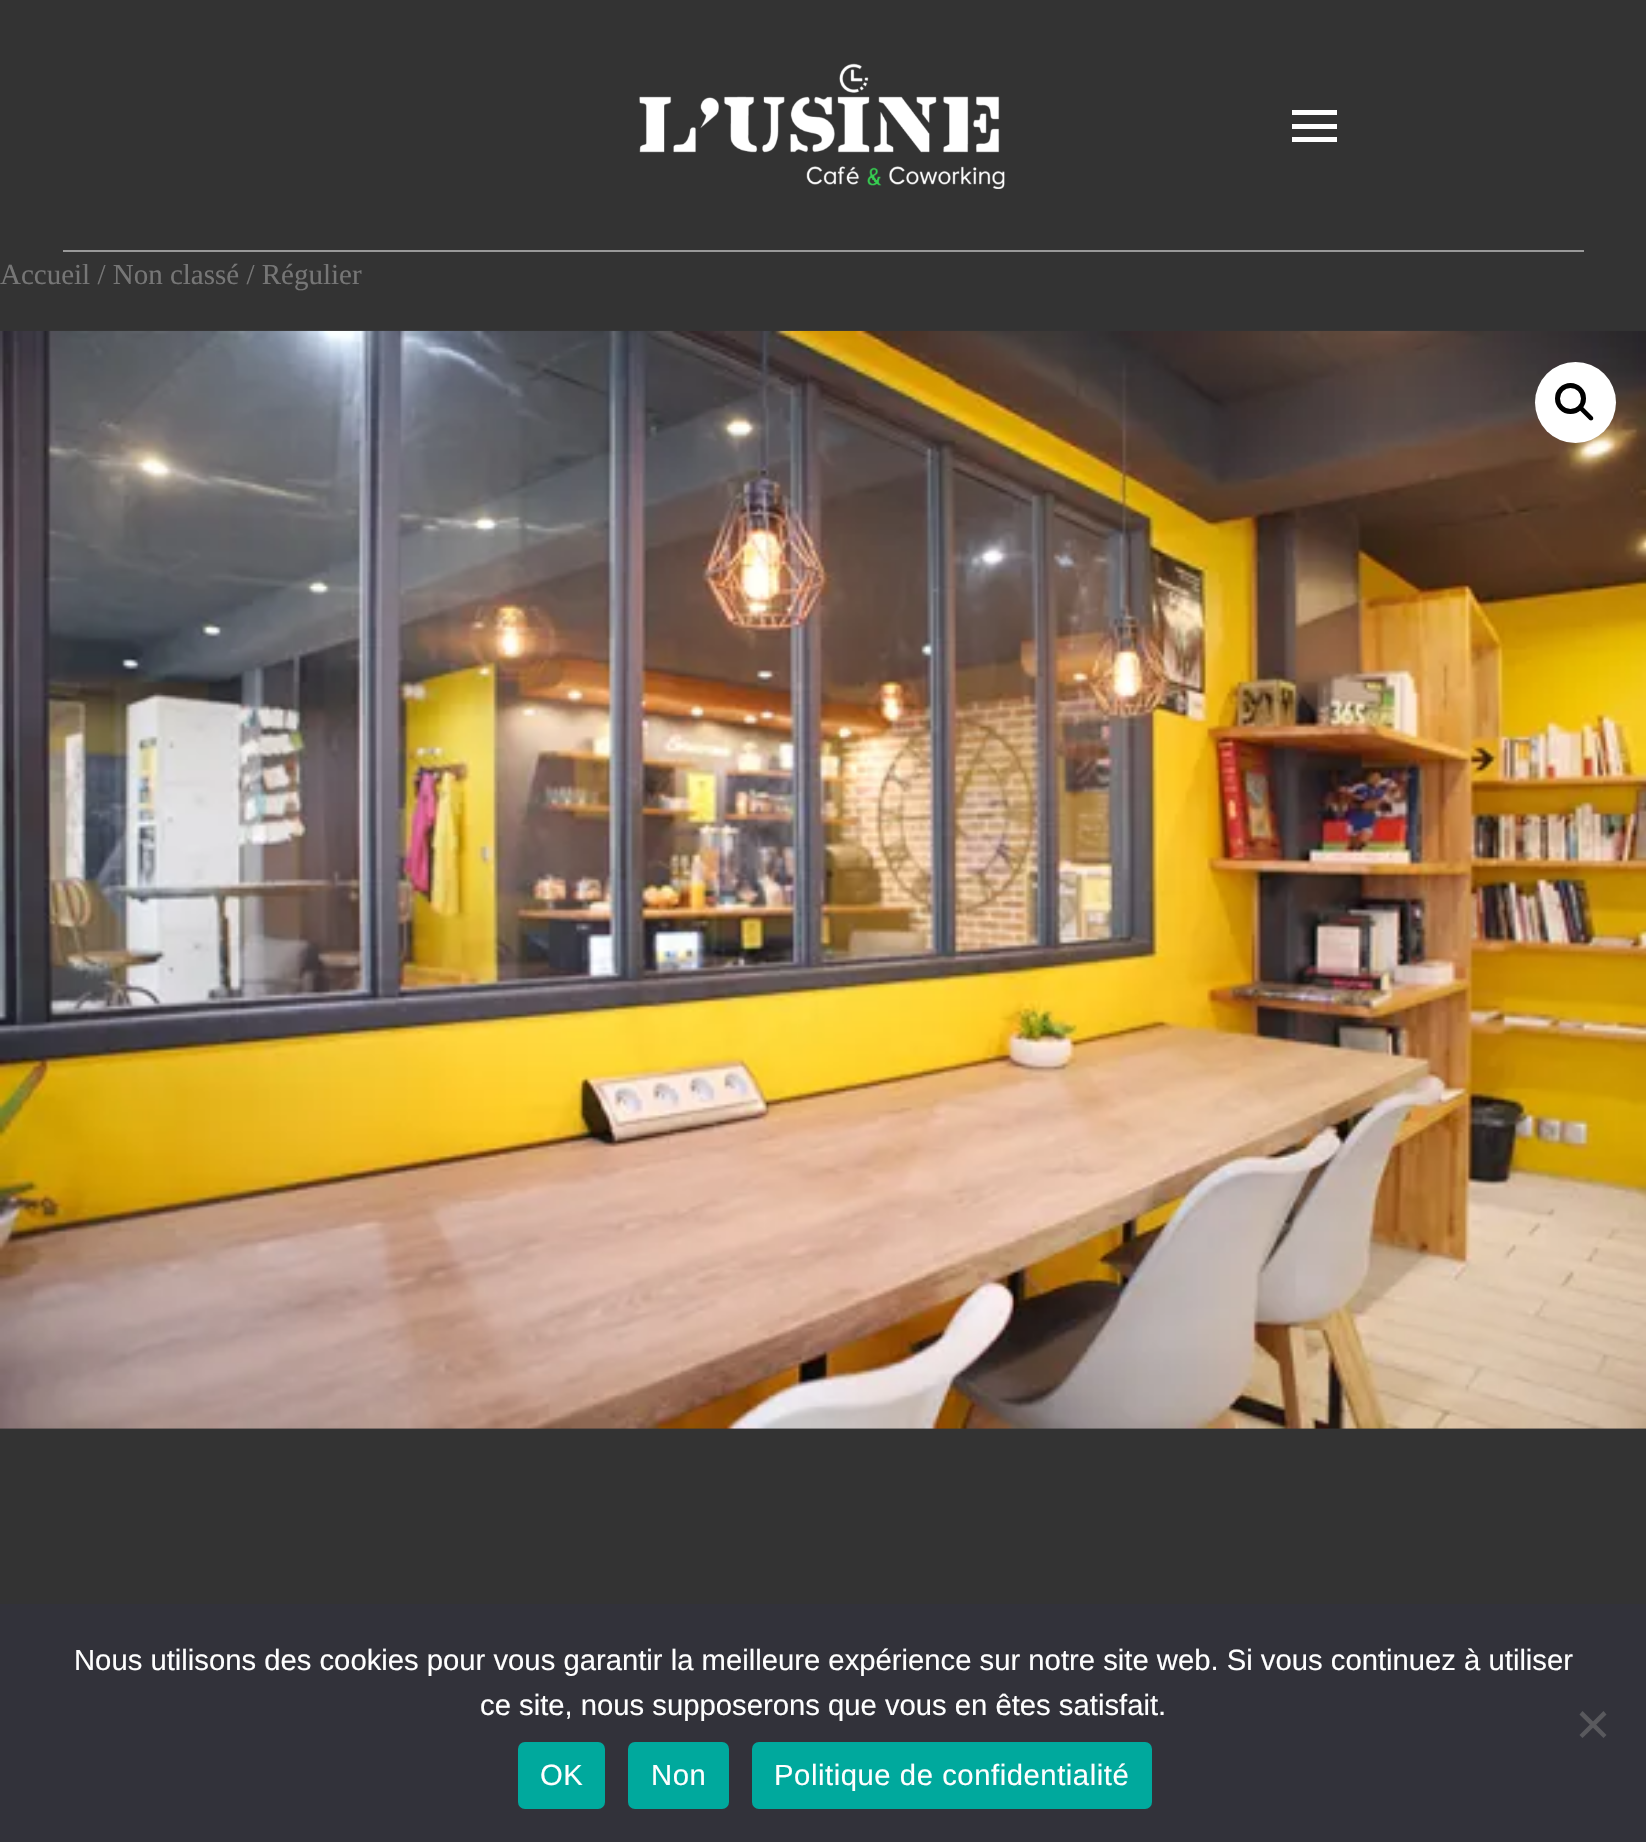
#include "include/core/SkBlurTypes.h"
#include "include/core/SkCanvas.h"
#include "include/core/SkData.h"
#include "include/core/SkFont.h"
#include "include/core/SkFontMgr.h"
#include "include/core/SkImage.h"
#include "include/core/SkMaskFilter.h"
#include "include/core/SkPaint.h"
#include "include/core/SkPathBuilder.h"
#include "include/core/SkTextBlob.h"
#include "include/effects/SkDashPathEffect.h"
#include "include/effects/SkGradientShader.h"
#include "include/utils/SkParsePath.h"

extern sk_sp<SkFontMgr> fontMgr;

static SkFont font(const char* family, int weight, float size, bool italic = false) {
    SkFontStyle style(weight, SkFontStyle::kNormal_Width,
        italic ? SkFontStyle::kItalic_Slant : SkFontStyle::kUpright_Slant);
    SkFont result(fontMgr->matchFamilyStyle(family, style), size);
    result.setSubpixel(true);
    return result;
}

static void drawLabel(SkCanvas* canvas, const char* s, float x, float y, const SkFont& font, SkColor color) {
    SkPaint ink(SkColor4f::FromColor(color));
    ink.setAntiAlias(true);
    canvas->drawString(s, x, y, font, ink);
}

static void drawTracked(SkCanvas* canvas, const char* s, float x, float y, const SkFont& font, const SkPaint& ink, float letter, float word) {
    std::vector<SkGlyphID> glyphs(font.countText(s, strlen(s), SkTextEncoding::kUTF8));
    std::vector<float> xs(glyphs.size());
    font.textToGlyphs(s, strlen(s), SkTextEncoding::kUTF8, glyphs);
    font.getXPos(glyphs, xs, x);
    float extra = 0;
    for (size_t i = 0; i < glyphs.size(); i++) {
        xs[i] += extra;
        extra += letter + word * (glyphs[i] == font.unicharToGlyph(' '));
    }
    canvas->drawTextBlob(SkTextBlob::MakeFromPosHGlyphs(glyphs, xs, y, font), 0, 0, ink);
}

static void fillRect(SkCanvas* canvas, float x, float y, float w, float h, SkColor color) {
    SkPaint ink(SkColor4f::FromColor(color));
    ink.setAntiAlias(true);
    canvas->drawRect(SkRect::MakeXYWH(x, y, w, h), ink);
}

static void fillRRect(SkCanvas* canvas, float x, float y, float w, float h, float radius, SkColor color) {
    SkPaint ink(SkColor4f::FromColor(color));
    ink.setAntiAlias(true);
    canvas->drawRoundRect(SkRect::MakeXYWH(x, y, w, h), radius, radius, ink);
}

static void drawPhoto(SkCanvas* canvas, const char* path, float x, float y, float w, float h) {
    auto image = SkImages::DeferredFromEncodedData(SkData::MakeFromFileName(path));
    canvas->drawImageRect(image, SkRect::MakeXYWH(x, y, w, h), SkSamplingOptions());
}

static SkPath parsePath(const char* data, bool evenOdd = false) {
    SkPath result = *SkParsePath::FromSVGString(data);
    if (evenOdd) result.setFillType(SkPathFillType::kEvenOdd);
    return result;
}

void draw(SkCanvas* canvas) {
    SkPaint paint;
    paint.setAntiAlias(true);
    canvas->clear(0xFF333333);
    drawPhoto(canvas, "assets/img1.png", 639, 63, 366, 126);
    fillRect(canvas, 1292, 110, 45, 5, 0xFFFFFFFF);
    fillRect(canvas, 1292, 124, 45, 5, 0xFFFFFFFF);
    fillRect(canvas, 1292, 137, 45, 5, 0xFFFFFFFF);
    fillRect(canvas, 63, 250, 1521, 2, 0xFF999999);
    SkFont font1 = font("Liberation Serif", 400, 29);
    drawLabel(canvas, "Accueil / Non classé / Régulier", 0, 284, font1, 0xFF767676);
    drawPhoto(canvas, "assets/img2.png", 0, 330, 1646, 1099);
    paint.setColor(0xFFFFFFFF);
    canvas->drawCircle(1575.5f, 402.5f, 40.5f, paint);
    paint.setStroke(true);
    paint.setStrokeWidth(5);
    paint.setColor(0xFF000000);
    canvas->drawCircle(1570.5f, 398.5f, 13, paint);
    paint.setStroke(false);
    canvas->drawPath(parsePath("M1580 407C1581 406 1582 406 1583 407L1592.5 416.5C1593.5 417.5 1593.5 419 1592.5 420C1591.5 420.5 1590.5 420.5 1589.5 420L1580 410.5C1579 409.5 1579 408 1580 407Z"), paint);
    fillRect(canvas, 0, 1604, 1646, 238, 0xFF32323A);
    SkFont font2 = font("Liberation Sans", 400, 29.25f);
    drawLabel(canvas, "Nous utilisons des cookies pour vous garantir la meilleure expérience sur notre site web. Si vous continuez à utiliser", 74, 1670, font2, 0xFFFFFFFF);
    drawLabel(canvas, "ce site, nous supposerons que vous en êtes satisfait.", 480, 1715, font2, 0xFFFFFFFF);
    paint.setColor(0xFF59595D);
    canvas->drawPath(parsePath("M1603.5 1711L1606.5 1714.5L1582.5 1738L1579.5 1735Z"), paint);
    canvas->drawPath(parsePath("M1579.5 1714.5L1582.5 1711L1606.5 1735L1603.5 1738Z"), paint);
    fillRRect(canvas, 518, 1742, 87, 67, 7, 0xFF00A99D);
    paint.setColor(0xFFFFFFFF);
    drawTracked(canvas, "OK", 540, 1785, font2, paint, 0.55f, 0);
    fillRRect(canvas, 628, 1742, 101, 67, 7, 0xFF00A99D);
    drawTracked(canvas, "Non", 651, 1785, font2, paint, 0.55f, 0);
    fillRRect(canvas, 752, 1742, 400, 67, 7, 0xFF00A99D);
    drawTracked(canvas, "Politique de confidentialité", 774, 1785, font2, paint, 0.55f, 0);
}
